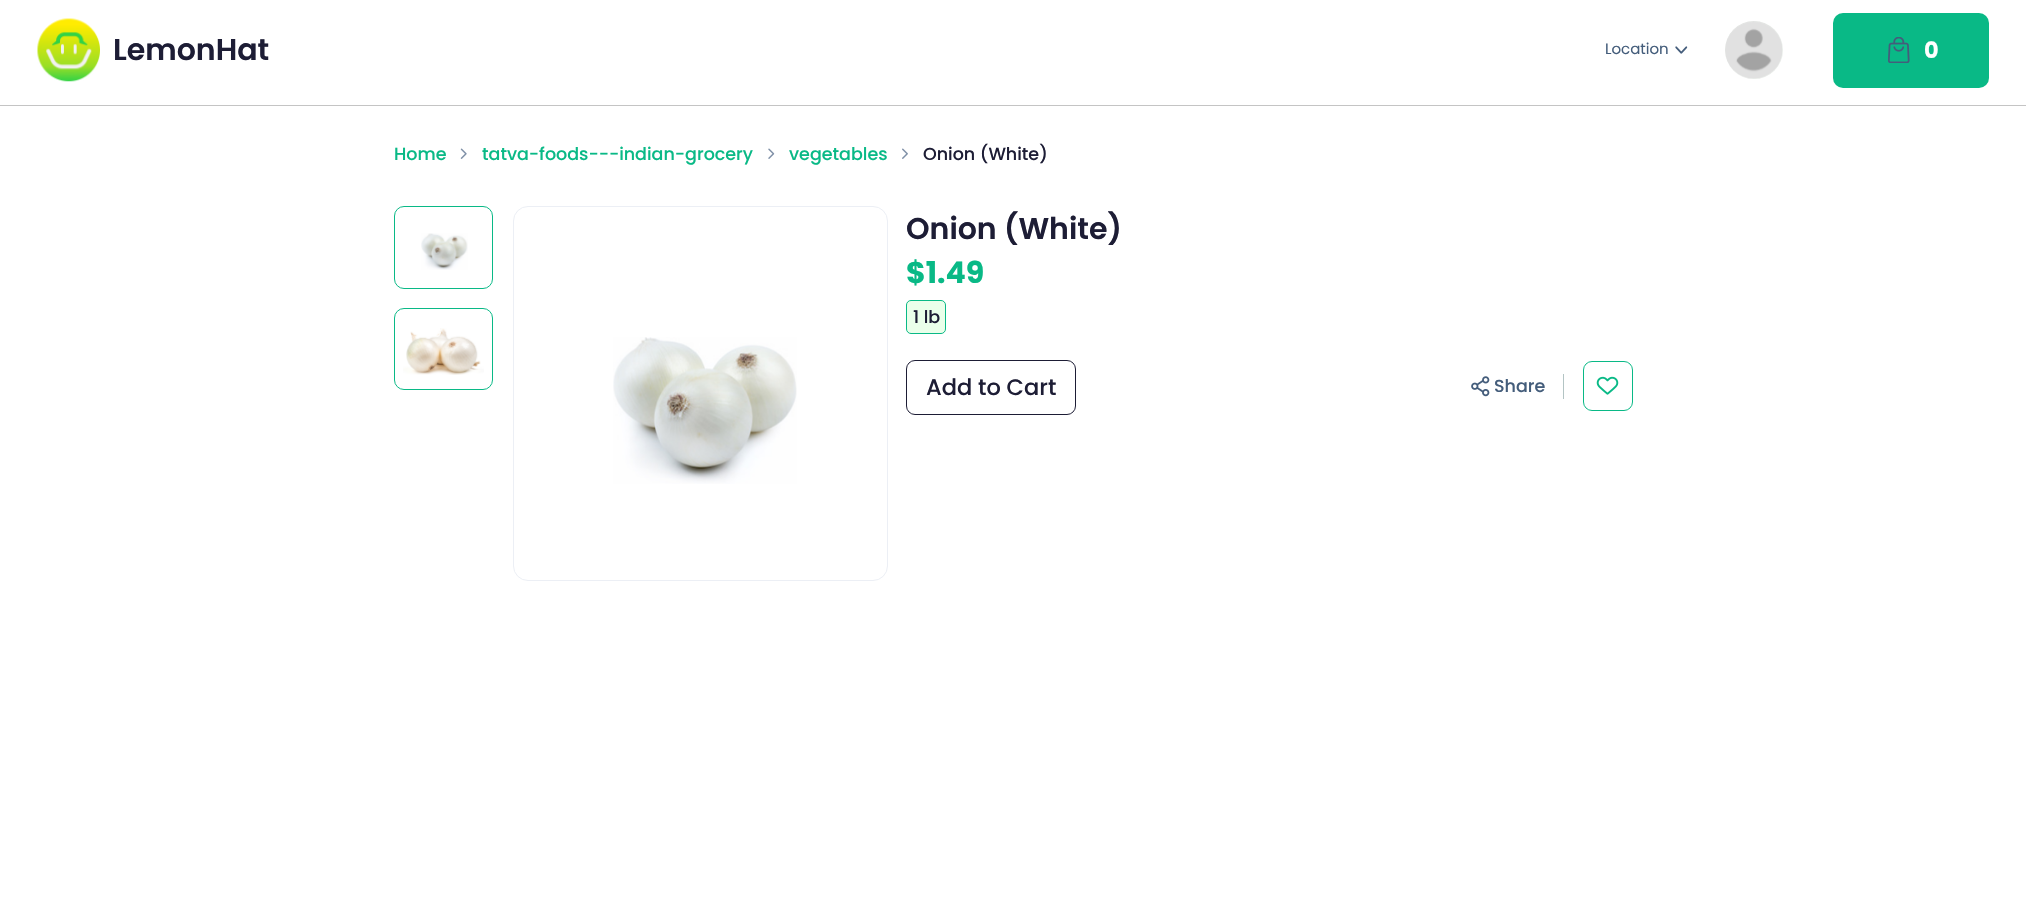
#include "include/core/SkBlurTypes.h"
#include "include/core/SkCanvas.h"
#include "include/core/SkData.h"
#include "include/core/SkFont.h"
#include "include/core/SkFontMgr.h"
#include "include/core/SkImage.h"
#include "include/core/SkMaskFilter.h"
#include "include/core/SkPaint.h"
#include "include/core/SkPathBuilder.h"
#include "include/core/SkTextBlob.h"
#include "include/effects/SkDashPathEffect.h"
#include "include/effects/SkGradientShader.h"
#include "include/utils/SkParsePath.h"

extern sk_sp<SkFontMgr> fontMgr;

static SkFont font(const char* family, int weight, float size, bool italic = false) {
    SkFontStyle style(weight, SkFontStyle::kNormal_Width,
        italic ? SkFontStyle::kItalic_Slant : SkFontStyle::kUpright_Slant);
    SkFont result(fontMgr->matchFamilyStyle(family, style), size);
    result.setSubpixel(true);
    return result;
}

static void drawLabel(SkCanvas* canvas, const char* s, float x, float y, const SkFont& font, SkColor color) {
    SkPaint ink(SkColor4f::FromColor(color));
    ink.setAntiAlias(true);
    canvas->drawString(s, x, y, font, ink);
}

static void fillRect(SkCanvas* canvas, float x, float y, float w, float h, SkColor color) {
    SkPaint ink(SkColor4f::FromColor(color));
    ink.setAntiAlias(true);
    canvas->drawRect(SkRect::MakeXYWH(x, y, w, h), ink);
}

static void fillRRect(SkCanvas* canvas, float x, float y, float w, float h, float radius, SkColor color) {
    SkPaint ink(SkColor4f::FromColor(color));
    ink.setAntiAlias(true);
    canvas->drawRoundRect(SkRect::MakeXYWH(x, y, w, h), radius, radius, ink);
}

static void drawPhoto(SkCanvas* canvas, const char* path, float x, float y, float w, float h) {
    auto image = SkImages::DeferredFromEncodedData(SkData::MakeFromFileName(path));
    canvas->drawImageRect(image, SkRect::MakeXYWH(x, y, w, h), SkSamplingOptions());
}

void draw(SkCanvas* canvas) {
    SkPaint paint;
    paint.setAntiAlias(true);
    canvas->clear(0xFFFFFFFF);
    fillRect(canvas, 0, 105, 2026, 1, 0xFFC4C4C4);
    drawPhoto(canvas, "assets/img1.png", 37, 18, 63, 64);
    SkFont font1 = font("Poppins", 600, 30);
    drawLabel(canvas, "LemonHat", 113, 60, font1, 0xFF1D1D35);
    SkFont font2 = font("Poppins", 400, 15);
    drawLabel(canvas, "Location", 1605, 54, font2, 0xFF445D7B);
    drawPhoto(canvas, "assets/img2.png", 1675, 46, 13, 8);
    paint.setColor(0xFFEAEEEA);
    canvas->drawCircle(1754, 50, 29, paint);
    drawPhoto(canvas, "assets/img3.png", 1725, 21, 57, 58);
    fillRRect(canvas, 1833, 13, 156, 75, 10, 0xFF09B986);
    drawPhoto(canvas, "assets/img4.png", 1888, 37, 22, 26);
    SkFont font3 = font("Poppins", 700, 22.5f);
    drawLabel(canvas, "0", 1924, 58, font3, 0xFFFFFFFF);
    SkFont font4 = font("Poppins", 500, 17.5f);
    drawLabel(canvas, "Home", 394, 160, font4, 0xFF09B986);
    drawPhoto(canvas, "assets/img5.png", 460, 148, 7, 11);
    drawLabel(canvas, "tatva-foods---indian-grocery", 482, 160, font4, 0xFF09B986);
    drawPhoto(canvas, "assets/img6.png", 768, 148, 7, 11);
    drawLabel(canvas, "vegetables", 789, 160, font4, 0xFF09B986);
    drawPhoto(canvas, "assets/img7.png", 902, 148, 6, 11);
    drawLabel(canvas, "Onion (White)", 923, 160, font4, 0xFF1D1D35);
    paint.setStroke(true);
    paint.setStrokeWidth(1);
    paint.setColor(0xFF09B986);
    canvas->drawRoundRect(SkRect::MakeXYWH(394.5f, 206.5f, 98, 82), 9.5f, 9.5f, paint);
    drawPhoto(canvas, "assets/img8.png", 421, 233, 47, 37);
    canvas->drawRoundRect(SkRect::MakeXYWH(394.5f, 308.5f, 98, 81), 9.5f, 9.5f, paint);
    drawPhoto(canvas, "assets/img9.png", 403, 328, 81, 47);
    paint.setColor(0xFFECEFF5);
    canvas->drawRoundRect(SkRect::MakeXYWH(513.5f, 206.5f, 374, 374), 14.5f, 14.5f, paint);
    drawPhoto(canvas, "assets/img10.png", 613, 337, 184, 147);
    drawLabel(canvas, "Onion (White)", 906, 239, font1, 0xFF1D1D35);
    SkFont font5 = font("Poppins", 700, 30);
    drawLabel(canvas, "$1.49", 906, 283, font5, 0xFF09B986);
    paint.setStroke(false);
    paint.setColor(0xFFEAFFEA);
    canvas->drawRoundRect(SkRect::MakeXYWH(906.5f, 300.5f, 39, 33), 4.5f, 4.5f, paint);
    paint.setStroke(true);
    paint.setColor(0xFF09B986);
    canvas->drawRoundRect(SkRect::MakeXYWH(906.5f, 300.5f, 39, 33), 4.5f, 4.5f, paint);
    drawLabel(canvas, "1 lb", 913, 323, font4, 0xFF1D1D35);
    paint.setColor(0xFF1D1D35);
    canvas->drawRoundRect(SkRect::MakeXYWH(906.5f, 360.5f, 169, 54), 8.5f, 8.5f, paint);
    SkFont font6 = font("Poppins", 500, 22.5f);
    drawLabel(canvas, "Add to Cart", 926, 395, font6, 0xFF1D1D35);
    drawPhoto(canvas, "assets/img11.png", 1471, 376, 19, 21);
    drawLabel(canvas, "Share", 1494, 392, font4, 0xFF445D7B);
    fillRect(canvas, 1563, 374, 1, 25, 0xFFB3C4C4);
    paint.setColor(0xFF09B986);
    canvas->drawRoundRect(SkRect::MakeXYWH(1583.5f, 361.5f, 49, 49), 8.5f, 8.5f, paint);
    drawPhoto(canvas, "assets/img12.png", 1596, 376, 23, 19);
}
